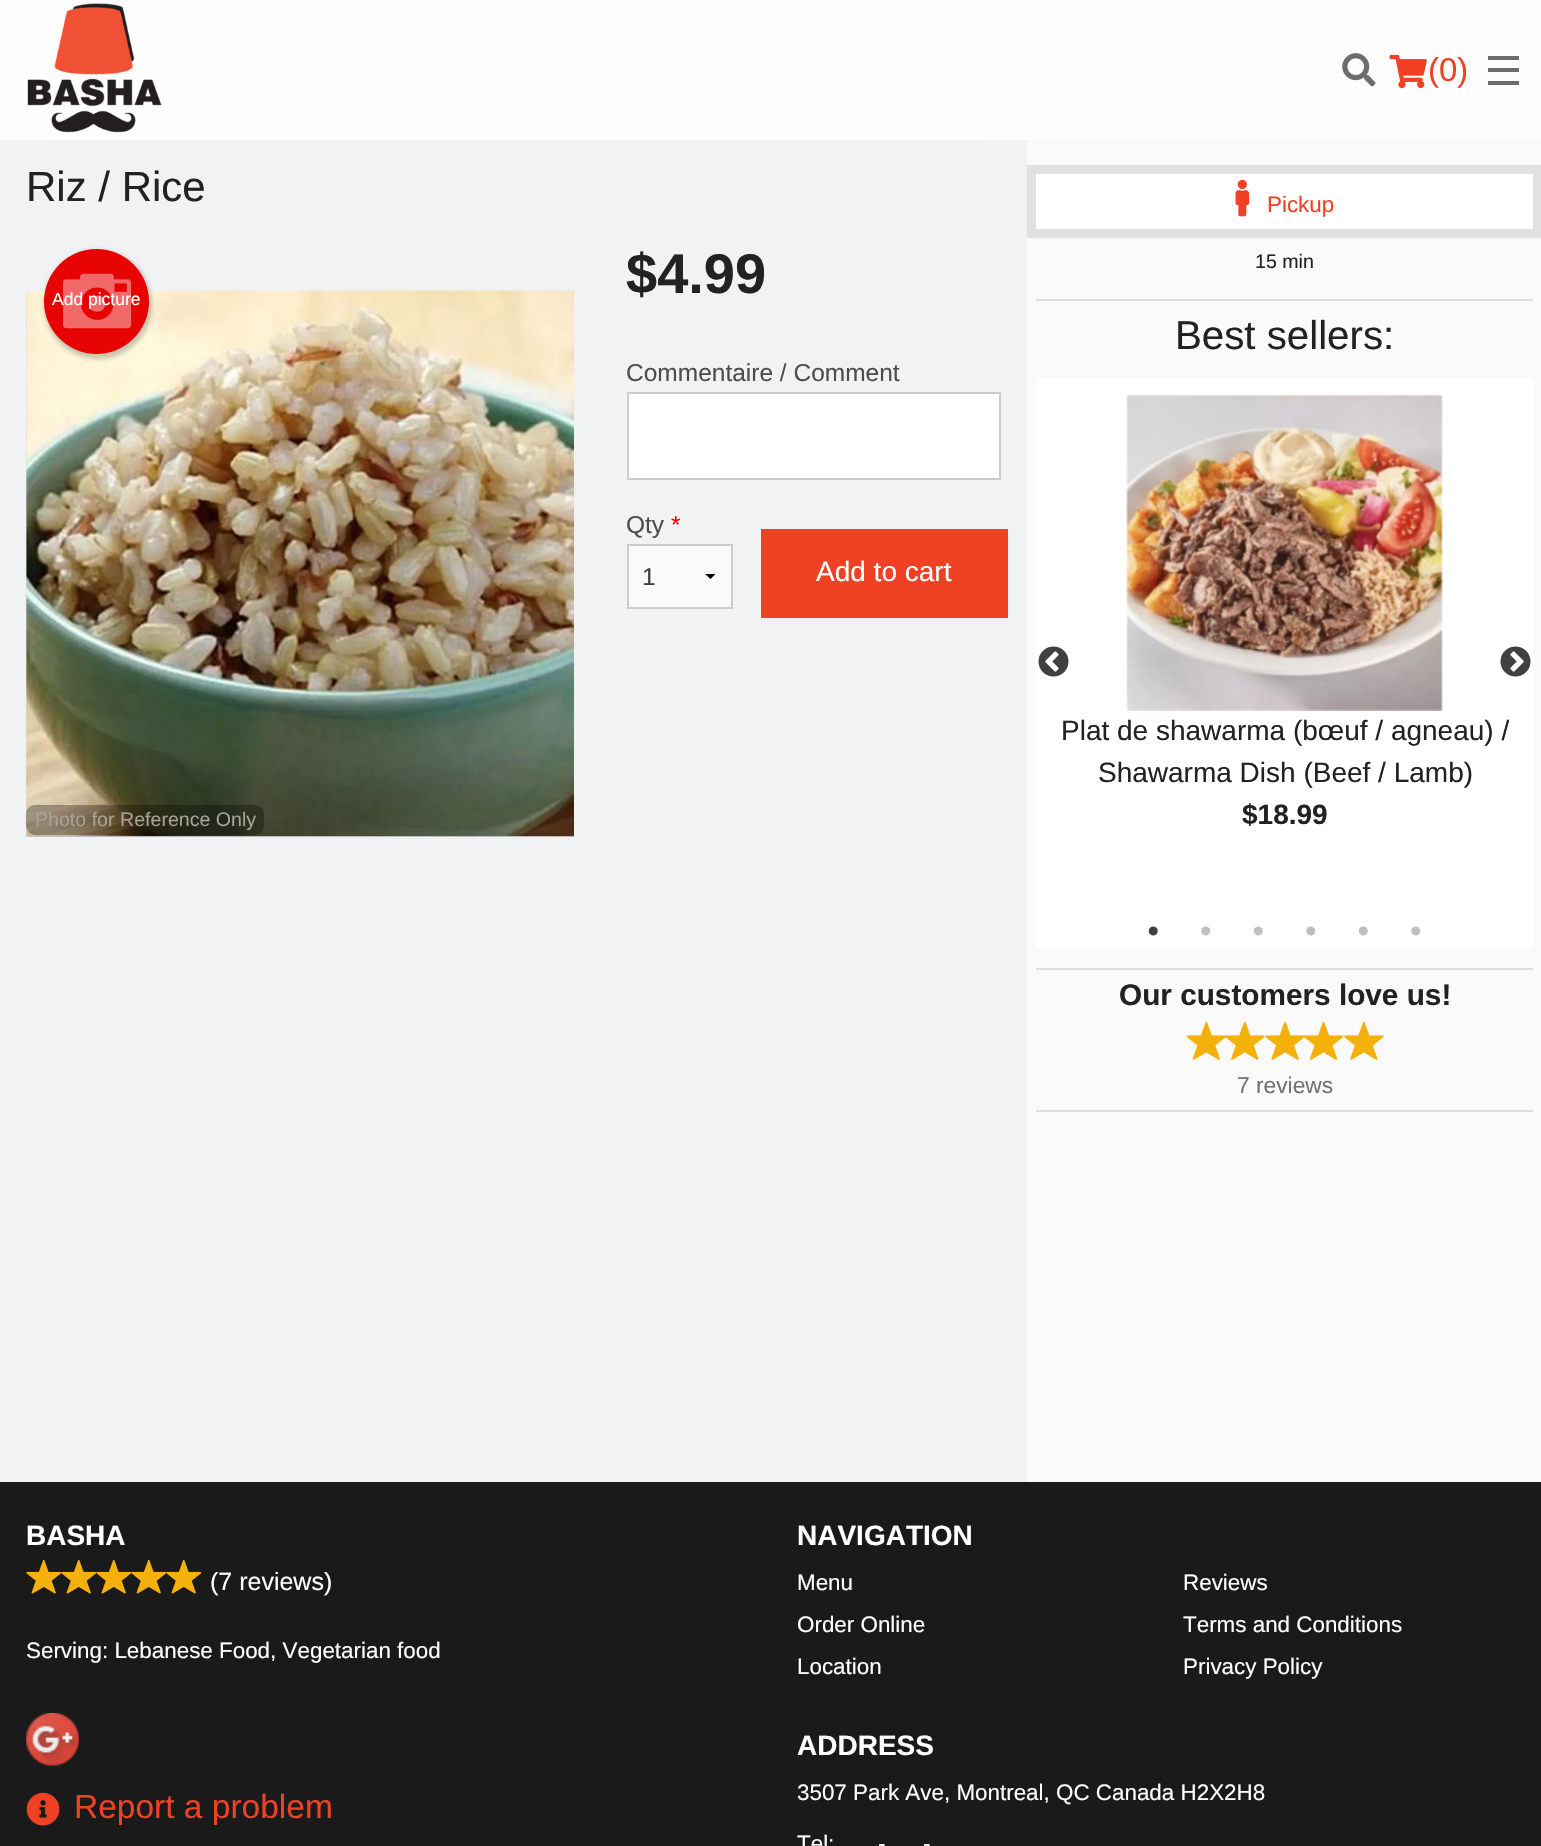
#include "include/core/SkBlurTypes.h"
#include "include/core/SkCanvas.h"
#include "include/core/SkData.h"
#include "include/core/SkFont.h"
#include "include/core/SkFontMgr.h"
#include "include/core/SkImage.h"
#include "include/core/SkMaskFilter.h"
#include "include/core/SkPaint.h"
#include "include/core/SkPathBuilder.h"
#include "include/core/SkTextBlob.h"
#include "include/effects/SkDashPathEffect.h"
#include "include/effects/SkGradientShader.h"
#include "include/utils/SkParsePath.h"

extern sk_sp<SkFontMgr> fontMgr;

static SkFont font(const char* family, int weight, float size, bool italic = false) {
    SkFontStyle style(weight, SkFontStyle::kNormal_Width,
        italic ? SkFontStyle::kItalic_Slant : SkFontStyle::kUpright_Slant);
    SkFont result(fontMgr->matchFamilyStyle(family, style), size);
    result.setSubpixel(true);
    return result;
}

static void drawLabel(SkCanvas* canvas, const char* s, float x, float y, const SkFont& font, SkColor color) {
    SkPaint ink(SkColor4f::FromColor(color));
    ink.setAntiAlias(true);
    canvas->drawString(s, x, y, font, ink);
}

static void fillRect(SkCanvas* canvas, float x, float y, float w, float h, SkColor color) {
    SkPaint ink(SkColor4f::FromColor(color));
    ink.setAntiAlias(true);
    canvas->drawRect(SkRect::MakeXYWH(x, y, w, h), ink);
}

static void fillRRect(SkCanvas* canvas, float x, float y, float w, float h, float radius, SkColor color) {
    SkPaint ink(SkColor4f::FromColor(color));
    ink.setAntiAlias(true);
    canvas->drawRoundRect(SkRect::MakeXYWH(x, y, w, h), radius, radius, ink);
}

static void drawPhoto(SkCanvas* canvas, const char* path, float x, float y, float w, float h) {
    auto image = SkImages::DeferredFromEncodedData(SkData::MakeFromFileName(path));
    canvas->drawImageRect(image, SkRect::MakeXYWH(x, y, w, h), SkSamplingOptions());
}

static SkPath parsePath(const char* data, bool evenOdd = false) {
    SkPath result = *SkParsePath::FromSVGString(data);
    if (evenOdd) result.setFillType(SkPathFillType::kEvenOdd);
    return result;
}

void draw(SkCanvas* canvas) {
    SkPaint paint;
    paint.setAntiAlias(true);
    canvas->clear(0xFFF1F2F3);
    {
        const SkColor colors[] = {0x00F5F4F5, 0xFFF5F4F5, 0xFFF5F4F5};
        const float stops[] = {0, 0.43f, 1};
        const SkPoint ends[] = {{61, 75}, {0, 75}};
        paint.setShader(SkGradientShader::MakeLinear(ends, colors, stops, 3, SkTileMode::kClamp));
        paint.setAlpha(255);
    }
    canvas->drawRect(SkRect::MakeXYWH(0, 5, 45, 140), paint);
    {
        const SkColor colors[] = {0xFFF1F2F3, 0xFFF5F4F5, 0xFFF5F4F5};
        const float stops[] = {0, 0.43f, 1};
        const SkPoint ends[] = {{966, 75}, {1027, 75}};
        paint.setShader(SkGradientShader::MakeLinear(ends, colors, stops, 3, SkTileMode::kClamp));
        paint.setAlpha(255);
    }
    canvas->drawRect(SkRect::MakeXYWH(982, 5, 45, 140), paint);
    fillRect(canvas, 1027, 5, 514, 1477, 0xFFFAFAFA);
    fillRect(canvas, 1036, 40, 497, 90, 0xFFCFCFCF);
    fillRect(canvas, 0, 0, 1541, 140, 0xCCFFFFFF);
    fillRect(canvas, 1036, 40, 497, 90, 0xCCFFFFFF);
    drawPhoto(canvas, "assets/img1.png", 27, 3, 135, 130);
    drawPhoto(canvas, "assets/img2.png", 1342, 53, 34, 34);
    drawPhoto(canvas, "assets/img3.png", 1389, 54, 38, 35);
    SkFont font1 = font("Liberation Sans", 400, 33);
    drawLabel(canvas, "(0)", 1428, 81, font1, 0xFFF04124);
    fillRect(canvas, 1488, 81, 31, 4, 0xFF6D6D6D);
    fillRect(canvas, 1488, 68, 31, 4, 0xFF6D6D6D);
    fillRect(canvas, 1488, 56, 31, 4, 0xFF6D6D6D);
    SkFont font2 = font("Liberation Sans", 400, 42);
    drawLabel(canvas, "Riz / Rice", 26, 201, font2, 0xFF222222);
    canvas->save();
    canvas->clipRect(SkRect::MakeXYWH(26, 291, 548, 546));
    paint.setShader(nullptr);
    paint.setColor(0x33000000);
    paint.setMaskFilter(SkMaskFilter::MakeBlur(kNormal_SkBlurStyle, 2));
    canvas->drawRect(SkRect::MakeXYWH(26, 292, 552, 550), paint);
    paint.setMaskFilter(nullptr);
    canvas->restore();
    drawPhoto(canvas, "assets/img4.png", 26, 290, 548, 547);
    paint.setMaskFilter(SkMaskFilter::MakeBlur(kNormal_SkBlurStyle, 2));
    canvas->drawRoundRect(SkRect::MakeXYWH(44, 250, 108, 109), 54, 54, paint);
    paint.setMaskFilter(nullptr);
    paint.setColor(0xFFE60301);
    canvas->drawCircle(96.5f, 301.5f, 52.5f, paint);
    drawPhoto(canvas, "assets/img5.png", 63, 273, 69, 56);
    SkFont font3 = font("Liberation Sans", 400, 17.5f);
    drawLabel(canvas, "Add picture", 52, 305, font3, 0xFFFFFFFF);
    fillRRect(canvas, 26, 805, 238, 30, 9, 0x4D000000);
    SkFont font4 = font("Liberation Sans", 400, 19.6f);
    drawLabel(canvas, "Photo for Reference Only", 35, 826, font4, 0xFFA5A298);
    SkFont font5 = font("Liberation Sans", 700, 56);
    drawLabel(canvas, "$4.99", 626, 293, font5, 0xFF222222);
    SkFont font6 = font("Liberation Sans", 400, 24.5f);
    drawLabel(canvas, "Commentaire / Comment", 626, 381, font6, 0xFF4D4D4D);
    paint.setColor(0xFFFFFFFF);
    canvas->drawRect(SkRect::MakeXYWH(628, 393, 372, 86), paint);
    paint.setStroke(true);
    paint.setStrokeWidth(2);
    paint.setColor(0xFFCCCCCC);
    canvas->drawRect(SkRect::MakeXYWH(628, 393, 372, 86), paint);
    drawLabel(canvas, "Qty", 626, 533, font6, 0xFF4D4D4D);
    drawLabel(canvas, "*", 671, 533, font6, 0xFFFF0000);
    fillRect(canvas, 629, 546, 102, 61, 0xFFFAFAFA);
    paint.setStroke(false);
    paint.setColor(0xFF000000);
    canvas->drawPath(parsePath("M715.5 574L710.5 579L705 574Z"), paint);
    paint.setStroke(true);
    paint.setColor(0xFFCCCCCC);
    canvas->drawRect(SkRect::MakeXYWH(628, 545, 104, 63), paint);
    drawLabel(canvas, "1", 642, 585, font6, 0xFF3F3F3F);
    fillRect(canvas, 761, 529, 247, 89, 0xFFF04124);
    SkFont font7 = font("Liberation Sans", 400, 28);
    drawLabel(canvas, "Add to cart", 816, 581, font7, 0xFFFFFFFF);
    fillRect(canvas, 1027, 165, 514, 73, 0xFFE1E1E1);
    fillRect(canvas, 1036, 174, 497, 55, 0xFFFFFFFF);
    drawPhoto(canvas, "assets/img6.png", 1235, 179, 15, 38);
    SkFont font8 = font("Liberation Sans", 400, 22.4f);
    drawLabel(canvas, "Pickup", 1267, 212, font8, 0xFFF04124);
    drawLabel(canvas, "15 min", 1255, 268, font4, 0xFF222222);
    fillRect(canvas, 1036, 299, 497, 2, 0xFFDDDDDD);
    SkFont font9 = font("Liberation Sans", 400, 40.25f);
    drawLabel(canvas, "Best sellers:", 1175, 349, font9, 0xFF222222);
    fillRect(canvas, 1036, 378, 497, 571, 0xFFFFFFFF);
    drawPhoto(canvas, "assets/img7.png", 1038, 646, 31, 31);
    drawPhoto(canvas, "assets/img8.png", 1500, 646, 31, 31);
    drawPhoto(canvas, "assets/img9.png", 1126, 394, 317, 317);
    drawLabel(canvas, "Plat de shawarma (bœuf / agneau) /", 1061, 740, font7, 0xFF222222);
    drawLabel(canvas, "Shawarma Dish (Beef / Lamb)", 1098, 782, font7, 0xFF222222);
    SkFont font10 = font("Liberation Sans", 700, 28);
    drawLabel(canvas, "$18.99", 1242, 824, font10, 0xFF222222);
    drawPhoto(canvas, "assets/img10.png", 1148, 926, 10, 10);
    drawPhoto(canvas, "assets/img11.png", 1201, 926, 10, 10);
    drawPhoto(canvas, "assets/img12.png", 1253, 926, 10, 10);
    drawPhoto(canvas, "assets/img11.png", 1306, 926, 10, 10);
    drawPhoto(canvas, "assets/img12.png", 1358, 926, 10, 10);
    drawPhoto(canvas, "assets/img11.png", 1411, 926, 10, 10);
    fillRect(canvas, 1036, 968, 497, 2, 0xFFDDDDDD);
    SkFont font11 = font("Liberation Sans", 700, 29.75f);
    drawLabel(canvas, "Our customers love us!", 1119, 1005, font11, 0xFF222222);
    drawPhoto(canvas, "assets/img13.png", 1186, 1021, 40, 39);
    drawPhoto(canvas, "assets/img14.png", 1225, 1021, 40, 39);
    drawPhoto(canvas, "assets/img15.png", 1265, 1021, 40, 39);
    drawPhoto(canvas, "assets/img16.png", 1304, 1021, 40, 39);
    drawPhoto(canvas, "assets/img17.png", 1344, 1021, 40, 39);
    SkFont font12 = font("Liberation Sans", 400, 22.75f);
    drawLabel(canvas, "7 reviews", 1237, 1093, font12, 0xFF737373);
    fillRect(canvas, 1036, 1110, 497, 2, 0xFFDDDDDD);
    fillRect(canvas, 0, 1482, 1541, 364, 0xFF1A1A1A);
    drawLabel(canvas, "BASHA", 26, 1545, font10, 0xFFFFFFFF);
    drawPhoto(canvas, "assets/img18.png", 26, 1560, 36, 34);
    drawPhoto(canvas, "assets/img19.png", 61, 1560, 36, 34);
    drawPhoto(canvas, "assets/img19.png", 96, 1560, 36, 34);
    drawPhoto(canvas, "assets/img19.png", 131, 1560, 36, 34);
    drawPhoto(canvas, "assets/img19.png", 166, 1560, 36, 34);
    SkFont font13 = font("Liberation Sans", 400, 25);
    drawLabel(canvas, "(7 reviews)", 210, 1590, font13, 0xFFFFFFFF);
    drawLabel(canvas, "Serving: Lebanese Food, Vegetarian food", 26, 1658, font8, 0xFFFFFFFF);
    drawPhoto(canvas, "assets/img20.png", 26, 1713, 53, 53);
    drawPhoto(canvas, "assets/img21.png", 26, 1792, 34, 34);
    SkFont font14 = font("Liberation Sans", 400, 33.5f);
    drawLabel(canvas, "Report a problem", 74, 1818, font14, 0xFFF04124);
    drawLabel(canvas, "NAVIGATION", 797, 1545, font10, 0xFFFFFFFF);
    drawLabel(canvas, "Menu", 797, 1590, font8, 0xFFFFFFFF);
    drawLabel(canvas, "Order Online", 797, 1632, font8, 0xFFFFFFFF);
    drawLabel(canvas, "Location", 797, 1674, font8, 0xFFFFFFFF);
    drawLabel(canvas, "Reviews", 1183, 1590, font8, 0xFFFFFFFF);
    drawLabel(canvas, "Terms and Conditions", 1183, 1632, font8, 0xFFFFFFFF);
    drawLabel(canvas, "Privacy Policy", 1183, 1674, font8, 0xFFFFFFFF);
    drawLabel(canvas, "ADDRESS", 797, 1755, font10, 0xFFFFFFFF);
    drawLabel(canvas, "3507 Park Ave, Montreal, QC Canada H2X2H8", 797, 1800, font8, 0xFFFFFFFF);
    drawLabel(canvas, "Tel:", 797, 1851, font8, 0xFFFFFFFF);
    drawLabel(canvas, "-", 878, 1851, font8, 0xFFFFFFFF);
    drawLabel(canvas, "-", 923, 1851, font8, 0xFFFFFFFF);
}
